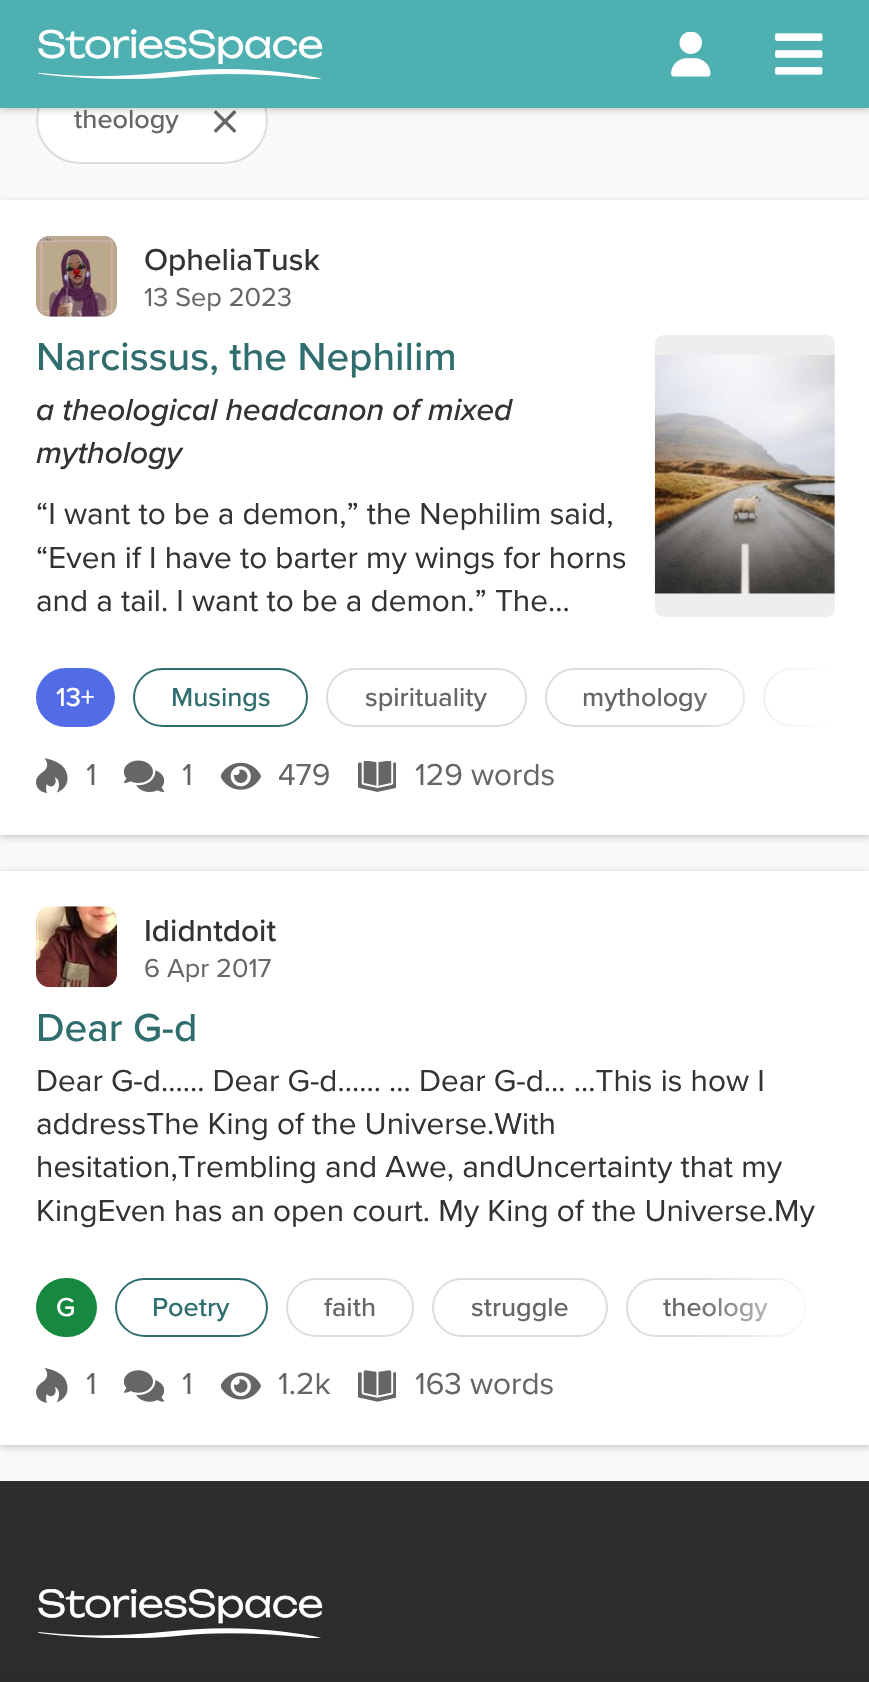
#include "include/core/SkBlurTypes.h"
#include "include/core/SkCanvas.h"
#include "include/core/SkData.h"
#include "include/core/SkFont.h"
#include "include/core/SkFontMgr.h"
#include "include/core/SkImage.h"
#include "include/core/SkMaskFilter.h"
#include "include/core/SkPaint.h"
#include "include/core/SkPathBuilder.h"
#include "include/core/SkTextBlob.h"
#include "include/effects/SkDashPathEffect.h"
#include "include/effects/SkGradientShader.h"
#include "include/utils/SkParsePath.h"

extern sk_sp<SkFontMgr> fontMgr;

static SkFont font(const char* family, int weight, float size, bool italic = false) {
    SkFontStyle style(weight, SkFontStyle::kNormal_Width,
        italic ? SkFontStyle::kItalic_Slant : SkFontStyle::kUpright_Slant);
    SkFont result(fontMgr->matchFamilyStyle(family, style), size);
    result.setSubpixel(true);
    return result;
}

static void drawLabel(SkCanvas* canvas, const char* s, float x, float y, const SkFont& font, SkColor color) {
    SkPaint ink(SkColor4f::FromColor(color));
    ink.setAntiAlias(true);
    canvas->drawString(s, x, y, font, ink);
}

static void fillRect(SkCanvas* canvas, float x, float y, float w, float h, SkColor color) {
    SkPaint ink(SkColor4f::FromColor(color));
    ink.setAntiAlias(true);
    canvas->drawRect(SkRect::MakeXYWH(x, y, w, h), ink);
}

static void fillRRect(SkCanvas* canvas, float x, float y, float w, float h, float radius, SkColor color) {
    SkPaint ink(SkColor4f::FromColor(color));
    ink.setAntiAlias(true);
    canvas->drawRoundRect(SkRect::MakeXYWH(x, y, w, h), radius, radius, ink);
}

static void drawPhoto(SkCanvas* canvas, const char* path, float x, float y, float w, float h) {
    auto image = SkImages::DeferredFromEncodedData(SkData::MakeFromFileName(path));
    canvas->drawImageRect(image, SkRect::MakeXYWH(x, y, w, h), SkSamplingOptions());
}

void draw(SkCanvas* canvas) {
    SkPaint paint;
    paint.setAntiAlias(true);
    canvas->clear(0xFFF9F9F9);
    paint.setColor(0xFFFFFFFF);
    canvas->drawRoundRect(SkRect::MakeXYWH(37, 78, 230, 85), 42.5f, 42.5f, paint);
    paint.setStroke(true);
    paint.setStrokeWidth(2);
    paint.setColor(0xFFDDDDDD);
    canvas->drawRoundRect(SkRect::MakeXYWH(37, 78, 230, 85), 42.5f, 42.5f, paint);
    drawPhoto(canvas, "assets/img4.png", 213, 110, 24, 23);
    paint.setStroke(false);
    paint.setColor(0x0F9C3A3A);
    paint.setMaskFilter(SkMaskFilter::MakeBlur(kNormal_SkBlurStyle, 2));
    canvas->drawRect(SkRect::MakeXYWH(2, 5, 867, 103), paint);
    paint.setMaskFilter(nullptr);
    paint.setColor(0x33000000);
    paint.setMaskFilter(SkMaskFilter::MakeBlur(kNormal_SkBlurStyle, 3.5f));
    canvas->drawRect(SkRect::MakeXYWH(0, 2, 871, 108), paint);
    paint.setMaskFilter(nullptr);
    fillRect(canvas, 0, 0, 869, 108, 0xFF4EB0B1);
    drawPhoto(canvas, "assets/img1.png", 38, 29, 285, 50);
    drawPhoto(canvas, "assets/img2.png", 671, 32, 40, 45);
    drawPhoto(canvas, "assets/img3.png", 775, 33, 48, 42);
    SkFont font1 = font("Proxima Nova", 500, 27);
    drawLabel(canvas, "theology", 74, 128, font1, 0xFF666666);
    paint.setColor(0x0F9C3A3A);
    paint.setMaskFilter(SkMaskFilter::MakeBlur(kNormal_SkBlurStyle, 2));
    canvas->drawRect(SkRect::MakeXYWH(2, 205, 867, 630), paint);
    paint.setMaskFilter(nullptr);
    paint.setColor(0x33000000);
    paint.setMaskFilter(SkMaskFilter::MakeBlur(kNormal_SkBlurStyle, 3.5f));
    canvas->drawRect(SkRect::MakeXYWH(0, 203, 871, 634), paint);
    paint.setMaskFilter(nullptr);
    fillRect(canvas, 0, 200, 869, 635, 0xFFFFFFFF);
    drawPhoto(canvas, "assets/img5.png", 36, 235, 81, 82);
    SkFont font2 = font("Proxima Nova", 500, 31.5f);
    drawLabel(canvas, "OpheliaTusk", 144, 270, font2, 0xFF333333);
    SkFont font3 = font("Proxima Nova", 400, 27);
    drawLabel(canvas, "13 Sep 2023", 144, 306, font3, 0xFF666666);
    SkFont font4 = font("Proxima Nova", 500, 40.5f);
    drawLabel(canvas, "Narcissus, the Nephilim", 36, 370, font4, 0xFF306D6E);
    SkFont font5 = font("Proxima Nova", 500, 31.5f, true);
    drawLabel(canvas, "a theological headcanon of mixed", 36, 420, font5, 0xFF333333);
    drawLabel(canvas, "mythology", 36, 463, font5, 0xFF333333);
    SkFont font6 = font("Proxima Nova", 400, 31.5f);
    drawLabel(canvas, "“I want to be a demon,” the Nephilim said,", 36, 524, font6, 0xFF333333);
    drawLabel(canvas, "“Even if I have to barter my wings for horns", 36, 568, font6, 0xFF333333);
    drawLabel(canvas, "and a tail. I want to be a demon.” The…", 36, 611, font6, 0xFF333333);
    fillRRect(canvas, 655, 335, 180, 282, 9, 0xFFEEEEEE);
    drawPhoto(canvas, "assets/img6.png", 654, 355, 181, 239);
    fillRRect(canvas, 36, 668, 79, 59, 29.5f, 0xFF516CE6);
    drawLabel(canvas, "13+", 56, 706, font1, 0xFFFFFFFF);
    paint.setStroke(true);
    paint.setColor(0xFF306D6E);
    canvas->drawRoundRect(SkRect::MakeXYWH(134, 669, 173, 57), 28.5f, 28.5f, paint);
    drawLabel(canvas, "Musings", 171, 706, font1, 0xFF306D6E);
    paint.setColor(0xFFDDDDDD);
    canvas->drawRoundRect(SkRect::MakeXYWH(327, 669, 199, 57), 28.5f, 28.5f, paint);
    drawLabel(canvas, "spirituality", 365, 706, font1, 0xFF666666);
    canvas->drawRoundRect(SkRect::MakeXYWH(546, 669, 198, 57), 28.5f, 28.5f, paint);
    drawLabel(canvas, "mythology", 582, 706, font1, 0xFF666666);
    canvas->save();
    canvas->clipRect(SkRect::MakeXYWH(36, 668, 799, 59));
    canvas->drawRoundRect(SkRect::MakeXYWH(764, 669, 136, 57), 28.5f, 28.5f, paint);
    canvas->restore();
    paint.setStroke(false);
    {
        const SkColor colors[] = {0x00FFFFFF, 0xFFFFFFFF};
        const float stops[] = {0, 1};
        const SkPoint ends[] = {{691, 695}, {835, 695}};
        paint.setShader(SkGradientShader::MakeLinear(ends, colors, stops, 2, SkTileMode::kClamp));
        paint.setAlpha(255);
    }
    canvas->drawRect(SkRect::MakeXYWH(694, 668, 141, 59), paint);
    drawPhoto(canvas, "assets/img7.png", 36, 758, 32, 35);
    drawLabel(canvas, "1", 86, 785, font6, 0xFF666666);
    drawPhoto(canvas, "assets/img8.png", 124, 760, 40, 32);
    drawLabel(canvas, "1", 182, 785, font6, 0xFF666666);
    drawPhoto(canvas, "assets/img9.png", 221, 762, 40, 28);
    drawLabel(canvas, "479", 278, 785, font6, 0xFF666666);
    drawPhoto(canvas, "assets/img10.png", 358, 761, 38, 31);
    drawLabel(canvas, "129 words", 415, 785, font6, 0xFF666666);
    paint.setShader(nullptr);
    paint.setColor(0x0F9C3A3A);
    paint.setMaskFilter(SkMaskFilter::MakeBlur(kNormal_SkBlurStyle, 2));
    canvas->drawRect(SkRect::MakeXYWH(2, 875, 867, 570), paint);
    paint.setMaskFilter(nullptr);
    paint.setColor(0x33000000);
    paint.setMaskFilter(SkMaskFilter::MakeBlur(kNormal_SkBlurStyle, 3.5f));
    canvas->drawRect(SkRect::MakeXYWH(0, 873, 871, 574), paint);
    paint.setMaskFilter(nullptr);
    fillRect(canvas, 0, 871, 869, 574, 0xFFFFFFFF);
    drawPhoto(canvas, "assets/img11.png", 36, 906, 81, 82);
    drawLabel(canvas, "Ididntdoit", 144, 941, font2, 0xFF333333);
    drawLabel(canvas, "6 Apr 2017", 144, 977, font3, 0xFF666666);
    drawLabel(canvas, "Dear G-d", 36, 1041, font4, 0xFF306D6E);
    drawLabel(canvas, "Dear G-d…… Dear G-d…… … Dear G-d… …This is how I", 36, 1091, font6, 0xFF333333);
    drawLabel(canvas, "addressThe King of the Universe.With", 36, 1134, font6, 0xFF333333);
    drawLabel(canvas, "hesitation,Trembling and Awe, andUncertainty that my", 36, 1177, font6, 0xFF333333);
    drawLabel(canvas, "KingEven has an open court. My King of the Universe.My", 36, 1221, font6, 0xFF333333);
    paint.setStroke(true);
    paint.setColor(0xFFDDDDDD);
    canvas->drawRoundRect(SkRect::MakeXYWH(627, 1279, 178, 57), 28.5f, 28.5f, paint);
    drawLabel(canvas, "theology", 663, 1316, font1, 0xFF666666);
    paint.setStroke(false);
    {
        const SkColor colors[] = {0x00FFFFFF, 0xFFFFFFFF};
        const float stops[] = {0, 1};
        const SkPoint ends[] = {{691, 1305}, {835, 1305}};
        paint.setShader(SkGradientShader::MakeLinear(ends, colors, stops, 2, SkTileMode::kClamp));
        paint.setAlpha(255);
    }
    canvas->drawRect(SkRect::MakeXYWH(694, 1278, 112, 59), paint);
    fillRRect(canvas, 36, 1278, 61, 59, 29.5f, 0xFF168840);
    drawLabel(canvas, "G", 56, 1316, font1, 0xFFFFFFFF);
    paint.setStroke(true);
    paint.setShader(nullptr);
    paint.setColor(0xFF306D6E);
    canvas->drawRoundRect(SkRect::MakeXYWH(116, 1279, 151, 57), 28.5f, 28.5f, paint);
    drawLabel(canvas, "Poetry", 152, 1316, font1, 0xFF306D6E);
    paint.setColor(0xFFDDDDDD);
    canvas->drawRoundRect(SkRect::MakeXYWH(287, 1279, 126, 57), 28.5f, 28.5f, paint);
    drawLabel(canvas, "faith", 324, 1316, font1, 0xFF666666);
    canvas->drawRoundRect(SkRect::MakeXYWH(433, 1279, 174, 57), 28.5f, 28.5f, paint);
    drawLabel(canvas, "struggle", 471, 1316, font1, 0xFF666666);
    drawPhoto(canvas, "assets/img12.png", 36, 1368, 32, 35);
    drawLabel(canvas, "1", 86, 1394, font6, 0xFF666666);
    drawPhoto(canvas, "assets/img13.png", 124, 1370, 40, 32);
    drawLabel(canvas, "1", 182, 1394, font6, 0xFF666666);
    drawPhoto(canvas, "assets/img14.png", 221, 1372, 40, 28);
    drawLabel(canvas, "1.2k", 278, 1394, font6, 0xFF666666);
    drawPhoto(canvas, "assets/img15.png", 358, 1370, 38, 32);
    drawLabel(canvas, "163 words", 415, 1394, font6, 0xFF666666);
    paint.setStroke(false);
    {
        const SkColor colors[] = {0xFF2E2E2E, 0xFF212121};
        const float stops[] = {0, 1};
        const SkPoint ends[] = {{435, 1481}, {435, 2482}};
        paint.setShader(SkGradientShader::MakeLinear(ends, colors, stops, 2, SkTileMode::kClamp));
        paint.setAlpha(255);
    }
    canvas->drawRect(SkRect::MakeXYWH(0, 1481, 869, 201), paint);
    drawPhoto(canvas, "assets/img16.png", 38, 1589, 285, 49);
}
